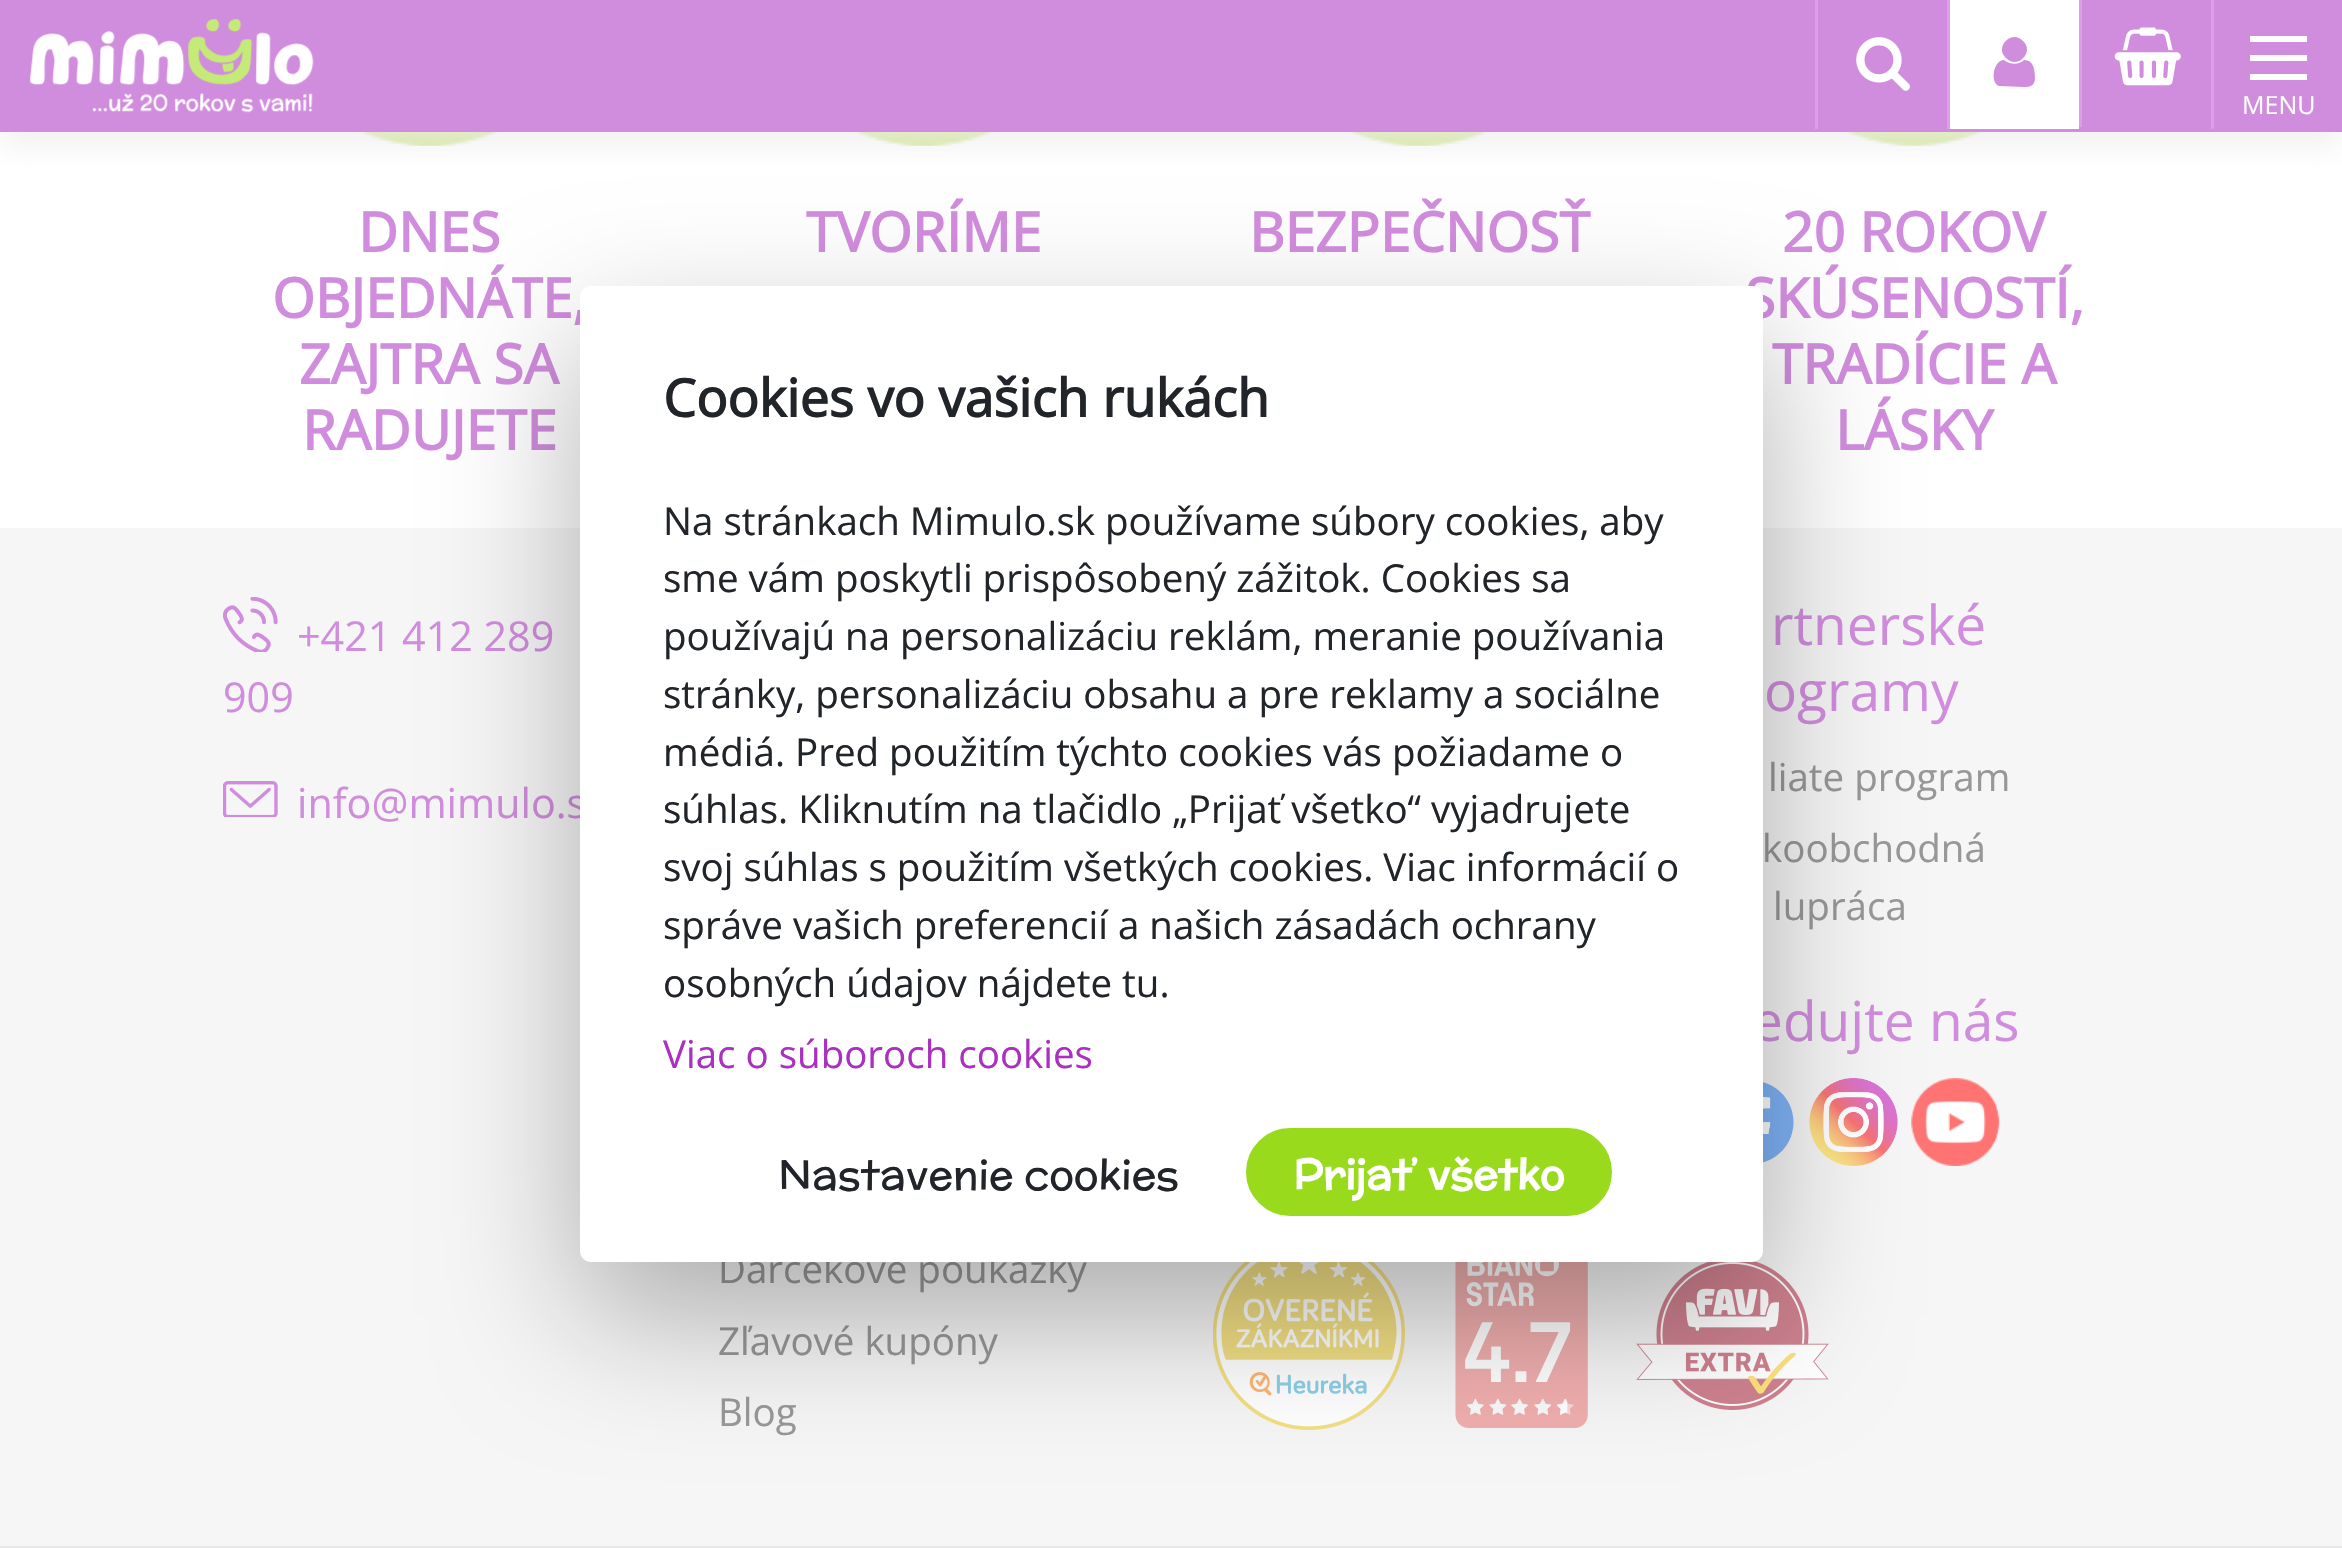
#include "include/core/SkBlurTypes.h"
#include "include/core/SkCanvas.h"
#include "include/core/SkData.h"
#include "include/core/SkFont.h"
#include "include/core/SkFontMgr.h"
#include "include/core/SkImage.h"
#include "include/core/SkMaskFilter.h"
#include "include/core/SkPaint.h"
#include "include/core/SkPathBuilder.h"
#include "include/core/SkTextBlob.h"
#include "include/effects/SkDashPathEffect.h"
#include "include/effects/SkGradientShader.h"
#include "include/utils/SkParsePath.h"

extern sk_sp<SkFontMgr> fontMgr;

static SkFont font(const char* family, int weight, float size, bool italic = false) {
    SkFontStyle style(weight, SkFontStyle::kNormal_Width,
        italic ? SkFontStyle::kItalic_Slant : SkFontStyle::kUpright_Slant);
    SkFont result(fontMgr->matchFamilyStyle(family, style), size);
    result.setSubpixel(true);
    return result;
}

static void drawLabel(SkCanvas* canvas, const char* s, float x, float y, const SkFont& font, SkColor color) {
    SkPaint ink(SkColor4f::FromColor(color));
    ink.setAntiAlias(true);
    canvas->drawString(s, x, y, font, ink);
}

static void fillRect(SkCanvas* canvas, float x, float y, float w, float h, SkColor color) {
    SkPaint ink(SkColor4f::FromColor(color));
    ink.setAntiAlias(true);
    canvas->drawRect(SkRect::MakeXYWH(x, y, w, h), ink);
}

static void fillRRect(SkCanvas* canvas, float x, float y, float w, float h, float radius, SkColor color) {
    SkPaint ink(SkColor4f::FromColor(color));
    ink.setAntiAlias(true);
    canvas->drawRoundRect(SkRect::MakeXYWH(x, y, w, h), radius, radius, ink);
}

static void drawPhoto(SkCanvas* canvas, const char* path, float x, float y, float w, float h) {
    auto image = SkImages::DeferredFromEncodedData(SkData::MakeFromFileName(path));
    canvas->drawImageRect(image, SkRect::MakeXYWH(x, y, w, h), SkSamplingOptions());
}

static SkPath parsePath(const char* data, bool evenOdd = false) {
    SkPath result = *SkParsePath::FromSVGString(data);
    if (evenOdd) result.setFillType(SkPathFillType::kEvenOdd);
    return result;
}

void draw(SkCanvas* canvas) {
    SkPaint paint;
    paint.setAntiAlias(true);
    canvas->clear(0xFFF6F6F6);
    fillRect(canvas, 0, 132, 2342, 396, 0xFFFFFFFF);
    drawPhoto(canvas, "assets/img4.png", 357, 132, 144, 14);
    drawPhoto(canvas, "assets/img5.png", 852, 132, 145, 14);
    drawPhoto(canvas, "assets/img6.png", 1347, 132, 144, 14);
    drawPhoto(canvas, "assets/img7.png", 1842, 132, 144, 14);
    paint.setColor(0xBAECECEC);
    paint.setMaskFilter(SkMaskFilter::MakeBlur(kNormal_SkBlurStyle, 14));
    canvas->drawRect(SkRect::MakeXYWH(0, 14, 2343, 132), paint);
    paint.setMaskFilter(nullptr);
    fillRect(canvas, 0, 0, 2342, 132, 0xFFD18DDD);
    drawPhoto(canvas, "assets/img1.png", 30, 19, 284, 94);
    fillRect(canvas, 1815, 0, 3, 129, 0xFFDC9FE7);
    drawPhoto(canvas, "assets/img2.png", 1856, 37, 54, 54);
    fillRect(canvas, 1950, 0, 129, 129, 0xFFFFFFFF);
    fillRect(canvas, 1947, 0, 3, 129, 0xFFDC9FE7);
    paint.setColor(0xFFD18DDD);
    canvas->drawPath(parsePath("M2035 78C2035 86 2030 87 2024 87L1999 86C1990 83 1993 60 2004 60C2010 65 2019 65 2024 60C2034 60 2035 71 2035 78ZM2023 41C2035 52 2017 70 2006 58C1994 47 2012 29 2023 41Z"), paint);
    fillRect(canvas, 2079, 0, 3, 127, 0xFFDC9FE7);
    drawPhoto(canvas, "assets/img3.png", 2114, 27, 67, 59);
    fillRect(canvas, 2211, 0, 3, 129, 0xFFDC9FE7);
    fillRect(canvas, 2250, 36, 57, 6, 0xFFFFFFFF);
    fillRect(canvas, 2250, 55, 57, 6, 0xFFFFFFFF);
    fillRect(canvas, 2250, 74, 57, 6, 0xFFFFFFFF);
    SkFont font1 = font("Open Sans", 400, 25);
    drawLabel(canvas, "MENU", 2242, 114, font1, 0xFFFFFFFF);
    fillRect(canvas, 0, 1546, 2342, 2, 0xFFE8E8E8);
    SkFont font2 = font("Open Sans", 700, 55);
    drawLabel(canvas, "DNES", 358, 252, font2, 0xFFD18DDD);
    drawLabel(canvas, "OBJEDNÁTE,", 272, 318, font2, 0xFFD18DDD);
    drawLabel(canvas, "ZAJTRA SA", 299, 384, font2, 0xFFD18DDD);
    drawLabel(canvas, "RADUJETE", 302, 450, font2, 0xFFD18DDD);
    drawLabel(canvas, "TVORÍME", 806, 252, font2, 0xFFD18DDD);
    drawLabel(canvas, "BEZPEČNOSŤ", 1249, 252, font2, 0xFFD18DDD);
    drawLabel(canvas, "20 ROKOV", 1782, 252, font2, 0xFFD18DDD);
    drawLabel(canvas, "SKÚSENOSTÍ,", 1745, 318, font2, 0xFFD18DDD);
    drawLabel(canvas, "TRADÍCIE A", 1772, 384, font2, 0xFFD18DDD);
    drawLabel(canvas, "LÁSKY", 1835, 450, font2, 0xFFD18DDD);
    drawPhoto(canvas, "assets/img8.png", 223, 597, 55, 55);
    SkFont font3 = font("Open Sans", 400, 41.25f);
    drawLabel(canvas, "+421 412 289", 297, 651, font3, 0xFFD18DDD);
    drawLabel(canvas, "909", 223, 712, font3, 0xFFD18DDD);
    drawPhoto(canvas, "assets/img9.png", 223, 781, 55, 36);
    drawLabel(canvas, "info@mimulo.s", 297, 818, font3, 0xFFD18DDD);
    SkFont font4 = font("Open Sans", 400, 55);
    drawLabel(canvas, "rtnerské", 1771, 645, font4, 0xFFD18DDD);
    drawLabel(canvas, "ogramy", 1764, 711, font4, 0xFFD18DDD);
    SkFont font5 = font("Open Sans", 400, 38.5f);
    drawLabel(canvas, "liate program", 1768, 791, font5, 0xFF989898);
    drawLabel(canvas, "koobchodná", 1762, 862, font5, 0xFF989898);
    drawLabel(canvas, "lupráca", 1773, 920, font5, 0xFF989898);
    drawLabel(canvas, "edujte nás", 1752, 1041, font4, 0xFFD18DDD);
    drawPhoto(canvas, "assets/img10.png", 1763, 1082, 31, 81);
    drawPhoto(canvas, "assets/img11.png", 1809, 1078, 89, 88);
    drawPhoto(canvas, "assets/img12.png", 1911, 1078, 89, 88);
    drawLabel(canvas, "Darčekové poukážky", 718, 1283, font5, 0xFF989898);
    drawLabel(canvas, "Zľavové kupóny", 718, 1355, font5, 0xFF989898);
    drawLabel(canvas, "Blog", 718, 1426, font5, 0xFF989898);
    drawPhoto(canvas, "assets/img13.png", 1213, 1262, 192, 168);
    drawPhoto(canvas, "assets/img14.png", 1455, 1262, 133, 166);
    drawPhoto(canvas, "assets/img15.png", 1636, 1261, 193, 149);
    paint.setColor(0x4D000000);
    paint.setMaskFilter(SkMaskFilter::MakeBlur(kNormal_SkBlurStyle, 69));
    canvas->drawRoundRect(SkRect::MakeXYWH(580, 341, 1183, 976), 11, 11, paint);
    paint.setMaskFilter(nullptr);
    fillRRect(canvas, 580, 286, 1183, 976, 11, 0xFFFFFFFF);
    SkFont font6 = font("Open Sans", 700, 52.25f);
    drawLabel(canvas, "Cookies vo vašich rukách", 663, 417, font6, 0xFF212529);
    drawLabel(canvas, "Na stránkach Mimulo.sk používame súbory cookies, aby", 663, 535, font5, 0xFF212529);
    drawLabel(canvas, "sme vám poskytli prispôsobený zážitok. Cookies sa", 663, 592, font5, 0xFF212529);
    drawLabel(canvas, "používajú na personalizáciu reklám, meranie používania", 663, 650, font5, 0xFF212529);
    drawLabel(canvas, "stránky, personalizáciu obsahu a pre reklamy a sociálne", 663, 708, font5, 0xFF212529);
    drawLabel(canvas, "médiá. Pred použitím týchto cookies vás požiadame o", 663, 766, font5, 0xFF212529);
    drawLabel(canvas, "súhlas. Kliknutím na tlačidlo „Prijať všetko“ vyjadrujete", 663, 823, font5, 0xFF212529);
    drawLabel(canvas, "svoj súhlas s použitím všetkých cookies. Viac informácií o", 663, 881, font5, 0xFF212529);
    drawLabel(canvas, "správe vašich preferencií a našich zásadách ochrany", 663, 939, font5, 0xFF212529);
    drawLabel(canvas, "osobných údajov nájdete tu.", 663, 997, font5, 0xFF212529);
    drawLabel(canvas, "Viac o súboroch cookies", 663, 1068, font5, 0xFFAB30C1);
    SkFont font7 = font("McLaren", 400, 41.25f);
    drawLabel(canvas, "Nastavenie cookies", 778, 1189, font7, 0xFF212529);
    paint.setColor(0xFF9ADA1C);
    canvas->drawRoundRect(SkRect::MakeXYWH(1247.5f, 1129.5f, 363, 85), 42.5f, 42.5f, paint);
    paint.setStroke(true);
    paint.setStrokeWidth(3);
    canvas->drawRoundRect(SkRect::MakeXYWH(1247.5f, 1129.5f, 363, 85), 42.5f, 42.5f, paint);
    SkFont font8 = font("McLaren", 700, 41.25f);
    drawLabel(canvas, "Prijať všetko", 1293, 1189, font8, 0xFFFFFFFF);
}
